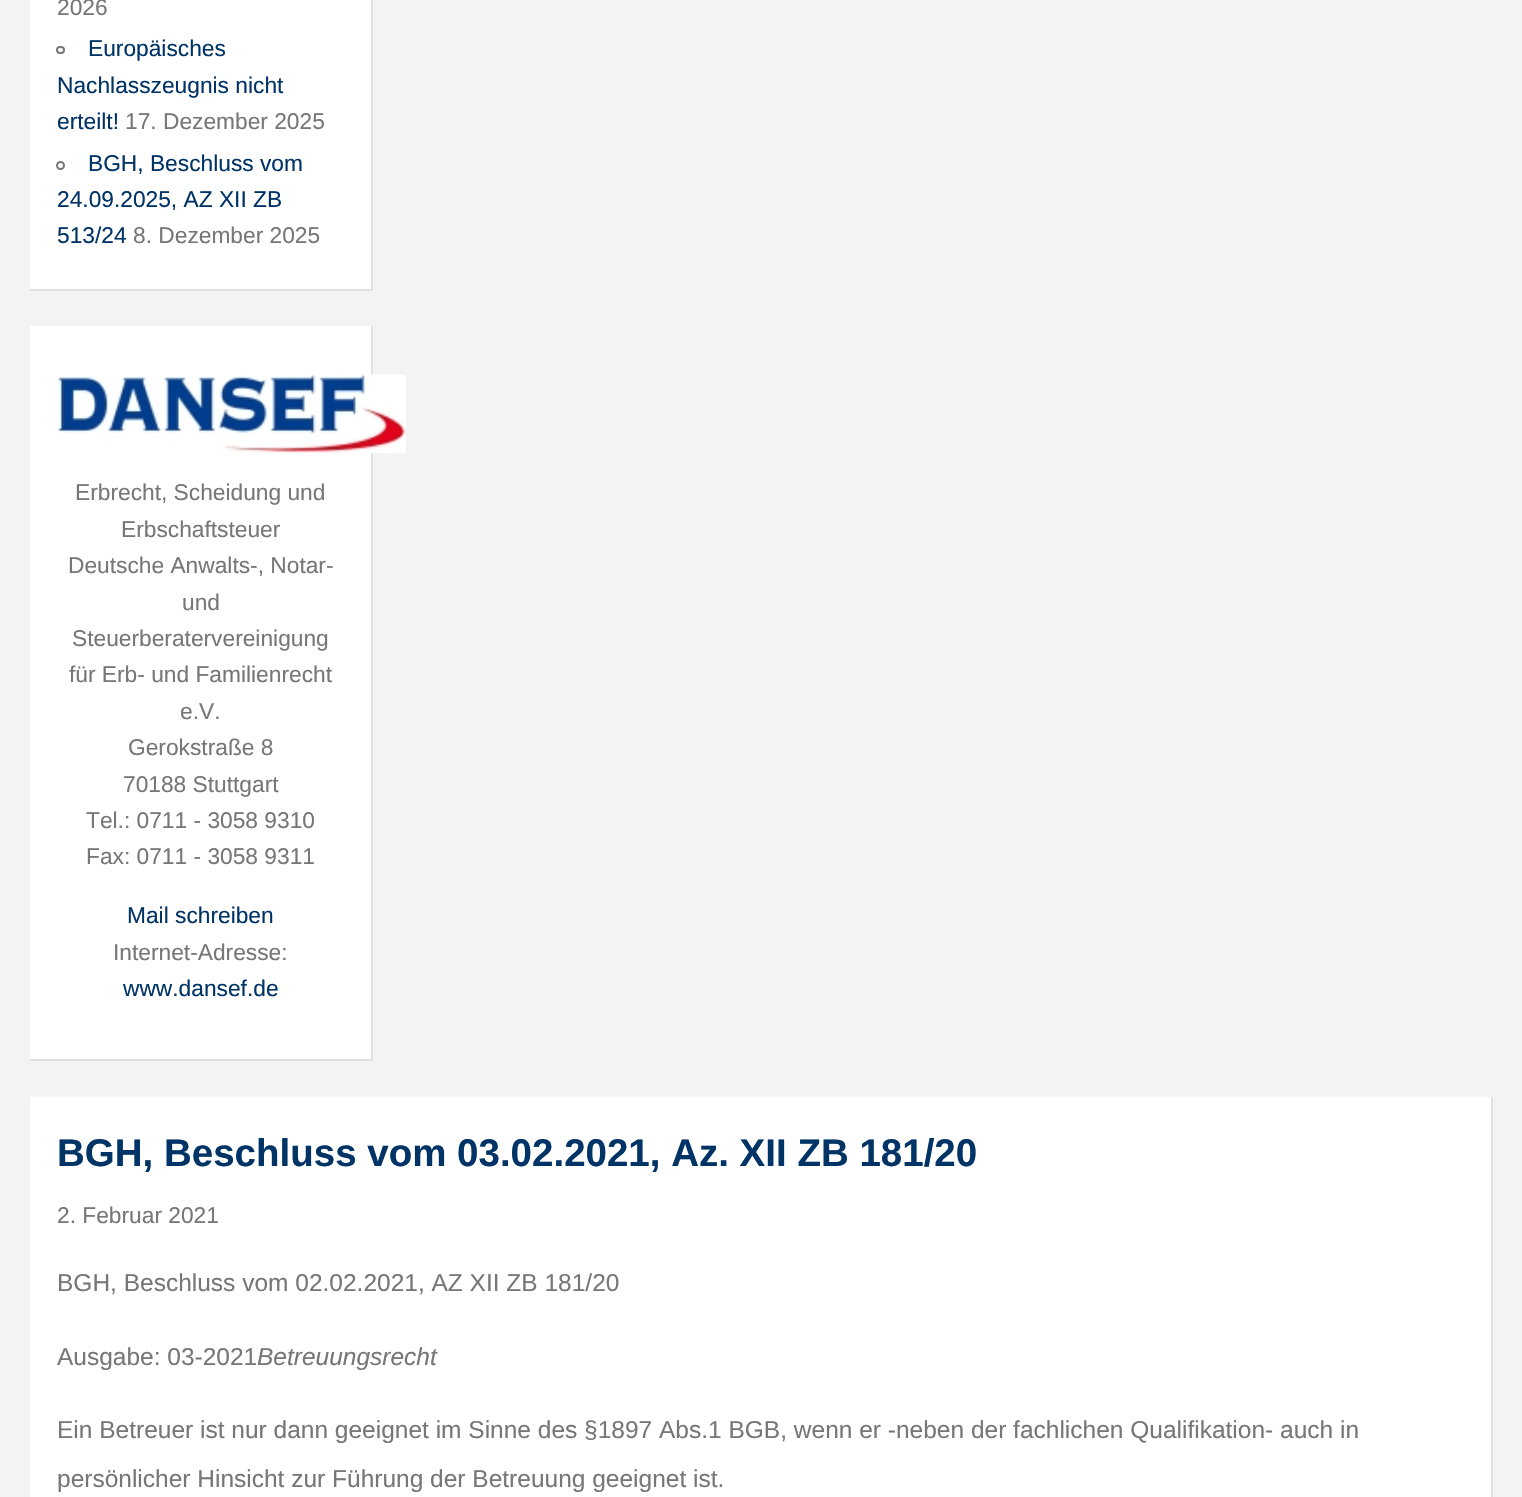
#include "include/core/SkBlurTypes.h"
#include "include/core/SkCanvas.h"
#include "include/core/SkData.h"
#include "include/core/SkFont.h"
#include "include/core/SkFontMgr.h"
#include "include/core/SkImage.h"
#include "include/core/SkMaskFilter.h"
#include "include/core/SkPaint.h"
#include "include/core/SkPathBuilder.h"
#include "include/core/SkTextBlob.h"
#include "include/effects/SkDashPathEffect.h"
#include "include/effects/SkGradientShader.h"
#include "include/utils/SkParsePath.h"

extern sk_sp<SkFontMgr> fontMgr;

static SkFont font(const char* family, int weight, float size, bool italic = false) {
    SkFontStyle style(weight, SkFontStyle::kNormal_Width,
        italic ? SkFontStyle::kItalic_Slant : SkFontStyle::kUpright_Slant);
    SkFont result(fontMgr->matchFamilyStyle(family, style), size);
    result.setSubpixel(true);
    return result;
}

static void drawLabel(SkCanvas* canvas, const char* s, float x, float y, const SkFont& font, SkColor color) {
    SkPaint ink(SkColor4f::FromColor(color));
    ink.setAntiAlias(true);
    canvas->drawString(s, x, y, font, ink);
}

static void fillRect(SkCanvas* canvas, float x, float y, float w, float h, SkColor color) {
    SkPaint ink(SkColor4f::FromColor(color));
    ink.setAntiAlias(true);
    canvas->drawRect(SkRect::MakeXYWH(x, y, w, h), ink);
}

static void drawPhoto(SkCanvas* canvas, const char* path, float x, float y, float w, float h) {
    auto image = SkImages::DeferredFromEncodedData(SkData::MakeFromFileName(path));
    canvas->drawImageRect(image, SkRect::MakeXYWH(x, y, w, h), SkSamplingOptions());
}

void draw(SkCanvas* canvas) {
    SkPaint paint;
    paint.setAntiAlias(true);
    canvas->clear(0xFFF3F3F3);
    fillRect(canvas, 30, 0, 341, 289, 0xFFFFFFFF);
    fillRect(canvas, 371, 0, 2, 291, 0xFFE1E1E1);
    fillRect(canvas, 30, 289, 343, 2, 0xFFE1E1E1);
    SkFont font1 = font("Liberation Sans", 400, 22.75f);
    drawLabel(canvas, "2026", 57, 15, font1, 0xFF777777);
    paint.setStroke(true);
    paint.setStrokeWidth(2);
    paint.setColor(0xFF777777);
    canvas->drawRoundRect(SkRect::MakeXYWH(57, 47, 7, 6), 3, 3, paint);
    drawLabel(canvas, "Europäisches", 88, 56, font1, 0xFF003366);
    drawLabel(canvas, "Nachlasszeugnis nicht", 57, 93, font1, 0xFF003366);
    drawLabel(canvas, "erteilt!", 57, 129, font1, 0xFF003366);
    drawLabel(canvas, "17. Dezember 2025", 125, 129, font1, 0xFF777777);
    canvas->drawCircle(60.5f, 165.5f, 3.5f, paint);
    drawLabel(canvas, "BGH, Beschluss vom", 88, 171, font1, 0xFF003366);
    drawLabel(canvas, "24.09.2025, AZ XII ZB", 57, 207, font1, 0xFF003366);
    drawLabel(canvas, "513/24", 57, 243, font1, 0xFF003366);
    drawLabel(canvas, "8. Dezember 2025", 133, 243, font1, 0xFF777777);
    fillRect(canvas, 30, 326, 341, 733, 0xFFFFFFFF);
    fillRect(canvas, 371, 326, 2, 735, 0xFFE1E1E1);
    fillRect(canvas, 30, 1059, 343, 2, 0xFFE1E1E1);
    drawPhoto(canvas, "assets/img1.png", 57, 374, 349, 80);
    drawLabel(canvas, "Erbrecht, Scheidung und", 75, 500, font1, 0xFF777777);
    drawLabel(canvas, "Erbschaftsteuer", 121, 537, font1, 0xFF777777);
    drawLabel(canvas, "Deutsche Anwalts-, Notar-", 68, 573, font1, 0xFF777777);
    drawLabel(canvas, "und", 182, 610, font1, 0xFF777777);
    drawLabel(canvas, "Steuerberatervereinigung", 72, 646, font1, 0xFF777777);
    drawLabel(canvas, "für Erb- und Familienrecht", 69, 682, font1, 0xFF777777);
    drawLabel(canvas, "e.V.", 180, 719, font1, 0xFF777777);
    drawLabel(canvas, "Gerokstraße 8", 128, 755, font1, 0xFF777777);
    drawLabel(canvas, "70188 Stuttgart", 123, 792, font1, 0xFF777777);
    drawLabel(canvas, "Tel.: 0711 - 3058 9310", 86, 828, font1, 0xFF777777);
    drawLabel(canvas, "Fax: 0711 - 3058 9311", 86, 864, font1, 0xFF777777);
    drawLabel(canvas, "Mail schreiben", 127, 923, font1, 0xFF003366);
    drawLabel(canvas, "Internet-Adresse:", 113, 960, font1, 0xFF777777);
    drawLabel(canvas, "www.dansef.de", 123, 996, font1, 0xFF003366);
    fillRect(canvas, 30, 1097, 1461, 400, 0xFFFFFFFF);
    fillRect(canvas, 1491, 1097, 2, 400, 0xFFE1E1E1);
    SkFont font2 = font("Liberation Sans", 700, 38.5f);
    drawLabel(canvas, "BGH, Beschluss vom 03.02.2021, Az. XII ZB 181/20", 57, 1166, font2, 0xFF003366);
    drawLabel(canvas, "2. Februar 2021", 57, 1223, font1, 0xFF777777);
    SkFont font3 = font("Liberation Sans", 400, 24.5f);
    drawLabel(canvas, "BGH, Beschluss vom 02.02.2021, AZ XII ZB 181/20", 57, 1291, font3, 0xFF777777);
    drawLabel(canvas, "Ausgabe: 03-2021", 57, 1365, font3, 0xFF777777);
    SkFont font4 = font("Liberation Sans", 400, 24.5f, true);
    drawLabel(canvas, "Betreuungsrecht", 257, 1365, font4, 0xFF777777);
    drawLabel(canvas, "Ein Betreuer ist nur dann geeignet im Sinne des §1897 Abs.1 BGB, wenn er -neben der fachlichen Qualifikation- auch in", 57, 1438, font3, 0xFF777777);
    drawLabel(canvas, "persönlicher Hinsicht zur Führung der Betreuung geeignet ist.", 57, 1487, font3, 0xFF777777);
}
